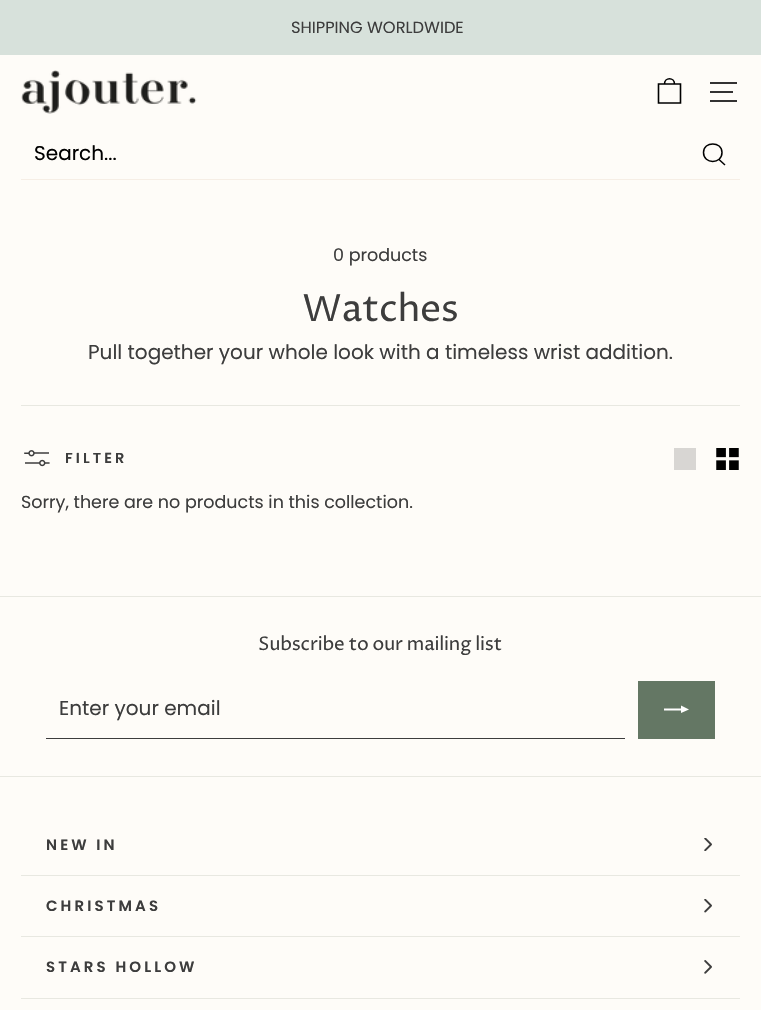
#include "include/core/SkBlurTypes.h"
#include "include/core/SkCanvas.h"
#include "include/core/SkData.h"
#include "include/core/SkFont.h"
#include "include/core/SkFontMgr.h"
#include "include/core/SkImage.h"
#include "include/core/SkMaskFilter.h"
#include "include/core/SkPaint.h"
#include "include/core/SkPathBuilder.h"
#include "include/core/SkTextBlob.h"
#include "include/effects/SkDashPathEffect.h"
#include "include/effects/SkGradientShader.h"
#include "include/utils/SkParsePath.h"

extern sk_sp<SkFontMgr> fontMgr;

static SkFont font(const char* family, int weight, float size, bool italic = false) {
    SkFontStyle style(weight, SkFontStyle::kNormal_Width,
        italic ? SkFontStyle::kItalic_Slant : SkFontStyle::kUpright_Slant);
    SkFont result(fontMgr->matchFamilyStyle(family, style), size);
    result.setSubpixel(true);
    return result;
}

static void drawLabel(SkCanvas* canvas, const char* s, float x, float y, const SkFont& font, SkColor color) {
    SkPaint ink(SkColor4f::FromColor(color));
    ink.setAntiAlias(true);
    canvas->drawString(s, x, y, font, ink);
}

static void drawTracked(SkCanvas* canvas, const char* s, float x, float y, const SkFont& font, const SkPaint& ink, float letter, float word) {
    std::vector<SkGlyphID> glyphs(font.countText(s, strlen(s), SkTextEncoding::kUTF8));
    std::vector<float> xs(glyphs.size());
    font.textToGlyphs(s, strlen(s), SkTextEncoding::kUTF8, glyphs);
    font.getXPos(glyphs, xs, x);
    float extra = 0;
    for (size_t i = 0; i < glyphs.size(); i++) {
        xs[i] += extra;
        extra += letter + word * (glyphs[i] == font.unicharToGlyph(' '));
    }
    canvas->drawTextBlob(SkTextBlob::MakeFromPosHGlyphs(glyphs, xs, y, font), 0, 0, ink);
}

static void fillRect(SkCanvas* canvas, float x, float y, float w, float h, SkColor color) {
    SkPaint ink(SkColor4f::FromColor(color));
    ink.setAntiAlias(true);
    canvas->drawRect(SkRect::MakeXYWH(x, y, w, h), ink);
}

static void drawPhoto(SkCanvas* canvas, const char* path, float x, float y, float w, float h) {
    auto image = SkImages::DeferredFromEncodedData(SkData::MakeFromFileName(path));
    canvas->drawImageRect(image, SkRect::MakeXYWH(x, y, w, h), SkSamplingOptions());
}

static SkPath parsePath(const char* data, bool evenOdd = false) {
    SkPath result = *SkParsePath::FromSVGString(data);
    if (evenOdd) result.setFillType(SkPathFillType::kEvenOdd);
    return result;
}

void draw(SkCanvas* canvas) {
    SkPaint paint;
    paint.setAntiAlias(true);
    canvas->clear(0xFFFEFCF8);
    fillRect(canvas, 0, 0, 761, 55, 0xFFD7E1DB);
    SkFont font1 = font("Poppins", 400, 16.25f);
    drawLabel(canvas, "SHIPPING WORLDWIDE", 291, 33, font1, 0xFF3D3D3D);
    drawPhoto(canvas, "assets/img1.png", 21, 70, 176, 44);
    paint.setStroke(true);
    paint.setStrokeWidth(1.6f);
    paint.setColor(0xFF000000);
    canvas->drawPath(parsePath("M664.5 84C664.5 77 674.5 77 674.5 84M658.5 84H680.5V103H658.5Z"), paint);
    fillRect(canvas, 710, 82, 27, 2, 0xFF333232);
    fillRect(canvas, 710, 91, 23, 2, 0xFF333232);
    fillRect(canvas, 710, 100, 27, 2, 0xFF333232);
    fillRect(canvas, 21, 179, 719, 1, 0xFFF6EEE5);
    SkFont font2 = font("Poppins", 400, 20);
    drawLabel(canvas, "Search...", 34, 160, font2, 0xFF000000);
    paint.setStrokeWidth(1.5f);
    canvas->drawPath(parsePath("M722 152.5C722 164.5 703.5 164.5 703.5 152.5C703.5 141 722 141 722 152.5ZM725 165L719 159.5"), paint);
    SkFont font3 = font("Poppins", 400, 17.5f);
    drawLabel(canvas, "0 products", 333, 261, font3, 0xFF3D3D3D);
    fillRect(canvas, 21, 405, 719, 1, 0xFFE8E8E1);
    SkFont font4 = font("Proza Libre", 400, 37.5f);
    paint.setStroke(false);
    paint.setColor(0xFF3D3D3D);
    drawTracked(canvas, "Watches", 302, 321, font4, paint, -0.5f, 0);
    drawLabel(canvas, "Pull together your whole look with a timeless wrist addition.", 88, 359, font2, 0xFF3D3D3D);
    drawPhoto(canvas, "assets/img2.png", 24, 450, 26, 17);
    SkFont font5 = font("Poppins", 600, 14.5f);
    drawTracked(canvas, "FILTER", 65, 463, font5, paint, 3.1f, 0);
    fillRect(canvas, 674, 448, 22, 22, 0xFFD8D6D3);
    drawPhoto(canvas, "assets/img3.png", 716, 448, 23, 22);
    drawLabel(canvas, "Sorry, there are no products in this collection.", 21, 508, font3, 0xFF3D3D3D);
    fillRect(canvas, 0, 596, 761, 1, 0xFFE8E8E1);
    SkFont font6 = font("Proza Libre", 400, 18.75f);
    drawTracked(canvas, "Subscribe to our mailing list", 258, 650, font6, paint, -0.2f, 0);
    fillRect(canvas, 46, 738, 579, 1, 0xFF3D3D3D);
    drawLabel(canvas, "Enter your email", 59, 715, font2, 0xFF3D3D3D);
    fillRect(canvas, 638, 681, 77, 58, 0xFF647764);
    paint.setColor(0xFFFFFFFF);
    canvas->drawPath(parsePath("M664 710.5V708.5H681V705.5L689 709.5L681 713V710.5Z"), paint);
    fillRect(canvas, 0, 776, 761, 1, 0xFFE8E8E1);
    fillRect(canvas, 21, 875, 719, 1, 0xFFE8E8E1);
    SkFont font7 = font("Poppins", 600, 15);
    paint.setColor(0xFF3D3D3D);
    drawTracked(canvas, "NEW IN", 46, 850, font7, paint, 3.1f, 0);
    drawPhoto(canvas, "assets/img4.png", 704, 838, 8, 13);
    fillRect(canvas, 21, 936, 719, 1, 0xFFE8E8E1);
    drawTracked(canvas, "CHRISTMAS", 46, 911, font7, paint, 3.1f, 0);
    drawPhoto(canvas, "assets/img5.png", 704, 899, 8, 14);
    fillRect(canvas, 21, 998, 719, 1, 0xFFE8E8E1);
    drawTracked(canvas, "STARS HOLLOW", 46, 972, font7, paint, 3.1f, 0);
    drawPhoto(canvas, "assets/img6.png", 704, 960, 8, 14);
}
